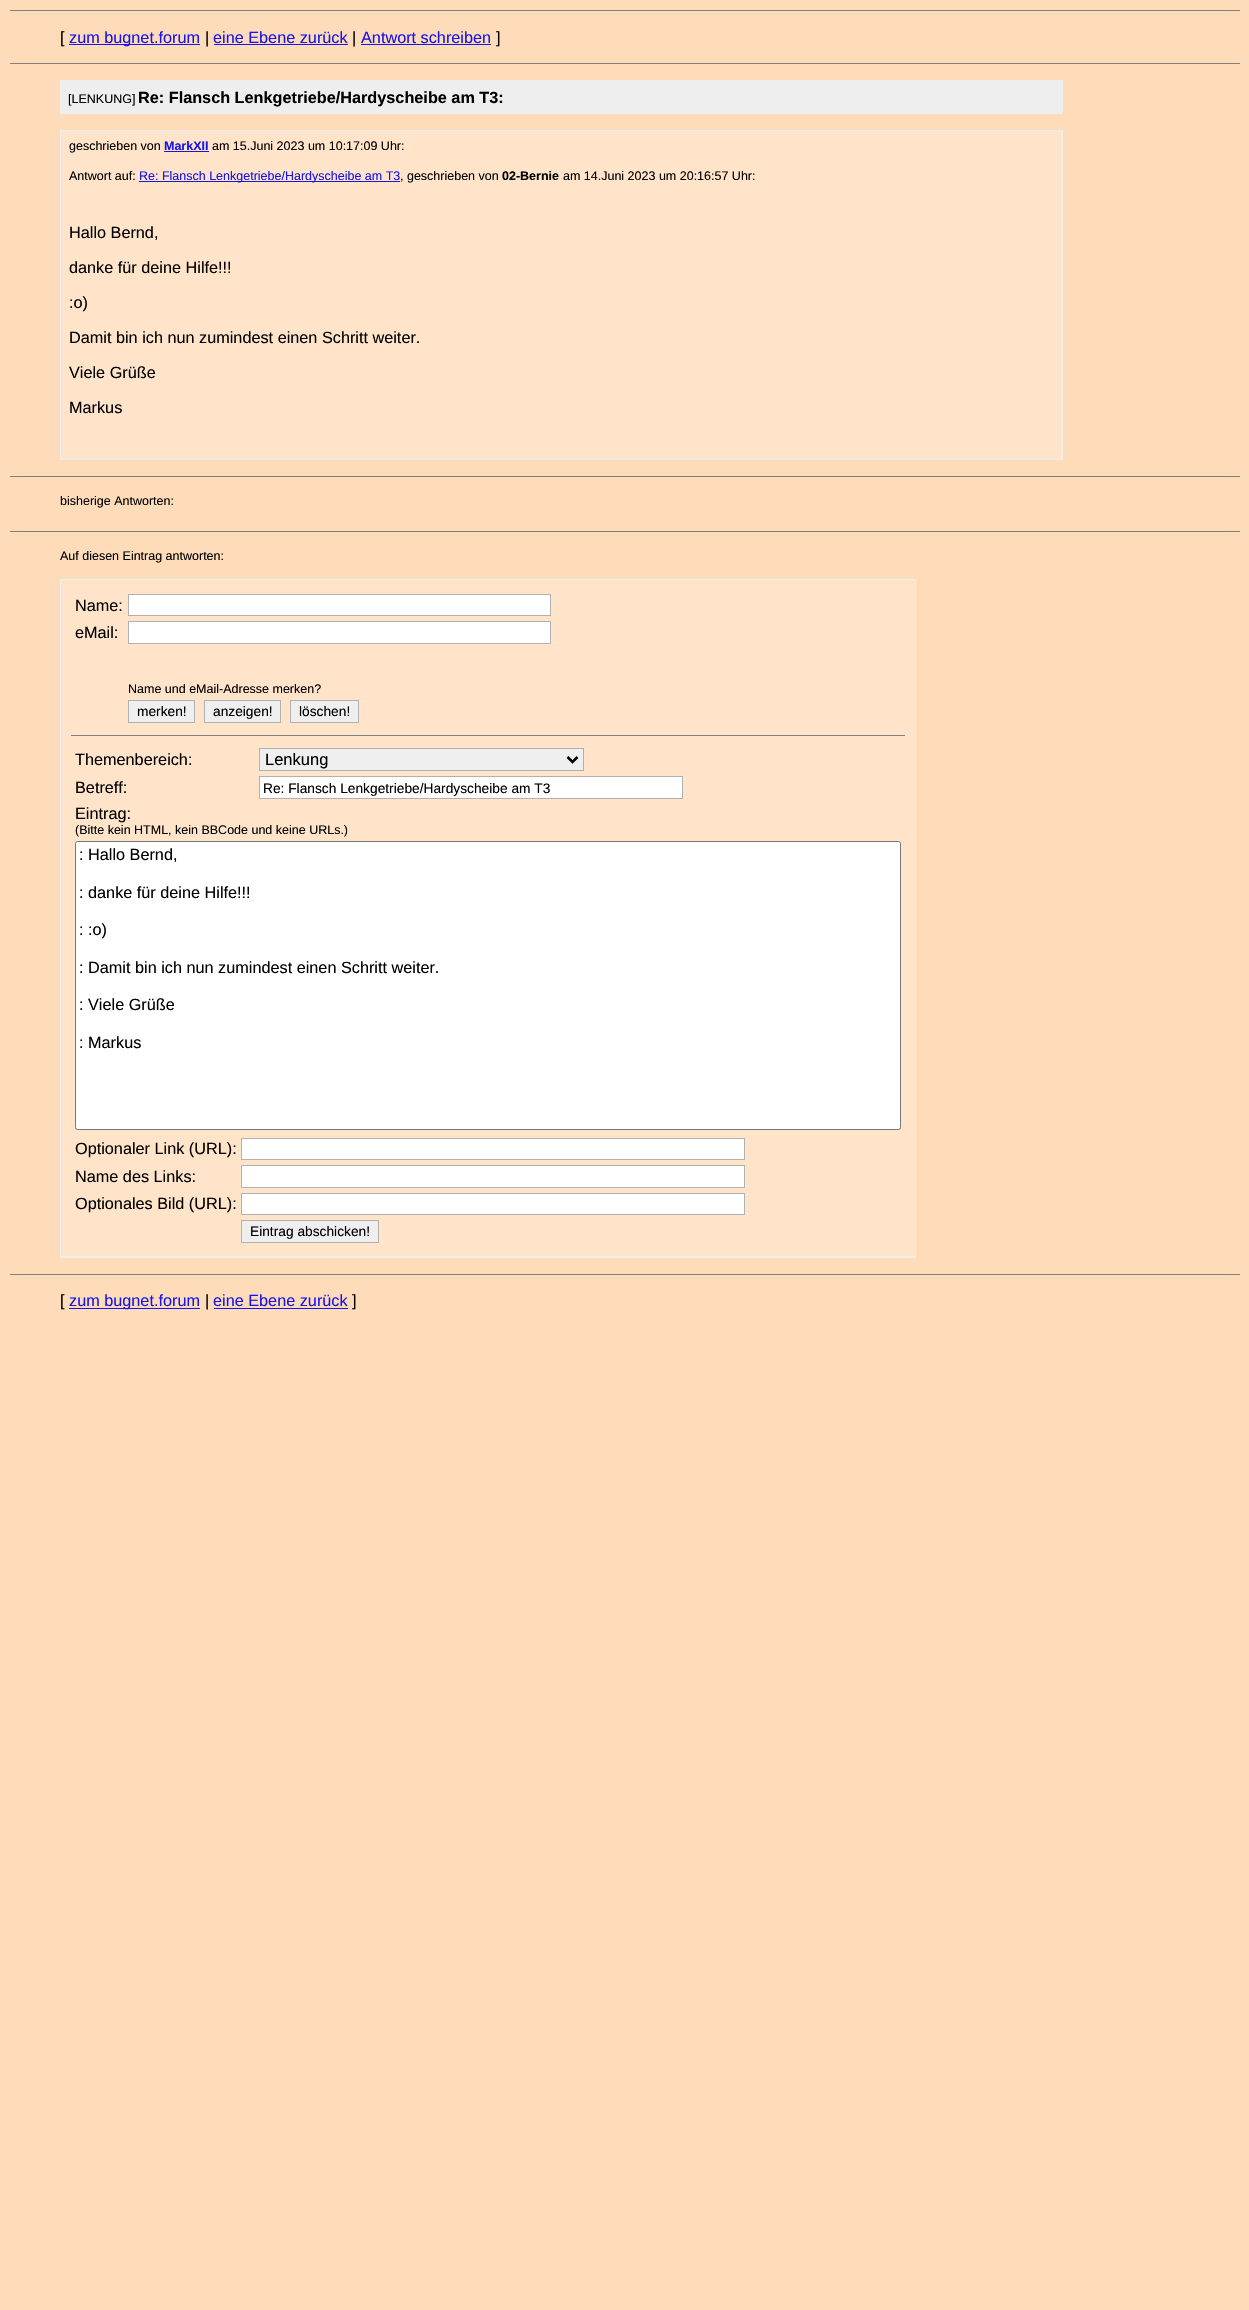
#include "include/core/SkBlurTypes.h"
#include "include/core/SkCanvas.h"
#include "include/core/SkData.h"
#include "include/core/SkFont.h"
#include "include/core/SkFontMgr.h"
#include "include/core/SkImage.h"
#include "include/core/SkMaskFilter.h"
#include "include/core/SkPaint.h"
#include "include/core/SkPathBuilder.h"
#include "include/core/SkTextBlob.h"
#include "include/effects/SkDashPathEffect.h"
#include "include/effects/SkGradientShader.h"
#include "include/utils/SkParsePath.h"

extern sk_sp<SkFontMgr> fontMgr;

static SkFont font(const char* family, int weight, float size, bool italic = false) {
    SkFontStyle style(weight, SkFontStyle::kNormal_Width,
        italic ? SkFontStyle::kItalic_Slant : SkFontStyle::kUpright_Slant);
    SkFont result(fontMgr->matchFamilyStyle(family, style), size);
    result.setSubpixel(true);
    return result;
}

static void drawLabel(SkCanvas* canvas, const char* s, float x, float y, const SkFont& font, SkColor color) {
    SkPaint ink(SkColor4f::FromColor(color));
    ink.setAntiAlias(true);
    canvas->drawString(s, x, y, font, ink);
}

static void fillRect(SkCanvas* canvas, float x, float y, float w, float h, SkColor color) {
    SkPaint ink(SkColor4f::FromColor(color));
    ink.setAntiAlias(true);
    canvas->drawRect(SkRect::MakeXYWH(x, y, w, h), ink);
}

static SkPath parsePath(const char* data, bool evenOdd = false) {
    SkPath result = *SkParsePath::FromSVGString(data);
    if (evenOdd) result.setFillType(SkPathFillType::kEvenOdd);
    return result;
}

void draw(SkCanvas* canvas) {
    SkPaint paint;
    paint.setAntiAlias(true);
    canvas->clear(0xFFFFDCB9);
    fillRect(canvas, 10, 10, 1230, 1, 0xFF808080);
    SkFont font1 = font("Liberation Sans", 400, 16.25f);
    drawLabel(canvas, "[", 60, 43, font1, 0xFF000000);
    fillRect(canvas, 69, 44, 131, 1, 0xFF1715E8);
    drawLabel(canvas, "zum bugnet.forum", 69, 43, font1, 0xFF1715E8);
    drawLabel(canvas, "|", 205, 43, font1, 0xFF000000);
    drawLabel(canvas, "eine Ebene zurück", 213, 43, font1, 0xFF1715E8);
    fillRect(canvas, 214, 44, 134, 1, 0xFF1715E8);
    drawLabel(canvas, "|", 352, 43, font1, 0xFF000000);
    drawLabel(canvas, "Antwort schreiben", 361, 43, font1, 0xFF1715E8);
    fillRect(canvas, 361, 44, 130, 1, 0xFF1715E8);
    drawLabel(canvas, "]", 496, 43, font1, 0xFF000000);
    fillRect(canvas, 10, 63, 1230, 1, 0xFF808080);
    fillRect(canvas, 60, 80, 1003, 34, 0xFFEEEEEE);
    SkFont font2 = font("Liberation Sans", 400, 12.5f);
    drawLabel(canvas, "[LENKUNG]", 68, 103, font2, 0xFF000000);
    SkFont font3 = font("Liberation Sans", 700, 16.25f);
    drawLabel(canvas, "Re: Flansch Lenkgetriebe/Hardyscheibe am T3:", 138, 103, font3, 0xFF000000);
    fillRect(canvas, 60, 130, 1003, 330, 0xFFEEEEEE);
    fillRect(canvas, 61, 131, 1000, 328, 0xFFFFE4CA);
    drawLabel(canvas, "geschrieben von", 69, 150, font2, 0xFF000000);
    SkFont font4 = font("Liberation Sans", 700, 12.5f);
    drawLabel(canvas, "MarkXII", 164, 150, font4, 0xFF1715E8);
    fillRect(canvas, 164, 151, 45, 1, 0xFF1715E8);
    drawLabel(canvas, "am 15.Juni 2023 um 10:17:09 Uhr:", 212, 150, font2, 0xFF000000);
    drawLabel(canvas, "Antwort auf:", 69, 180, font2, 0xFF000000);
    fillRect(canvas, 139, 181, 261, 1, 0xFF1715E8);
    drawLabel(canvas, "Re: Flansch Lenkgetriebe/Hardyscheibe am T3", 139, 180, font2, 0xFF1715E8);
    drawLabel(canvas, ", geschrieben von", 400, 180, font2, 0xFF000000);
    drawLabel(canvas, "02-Bernie", 502, 180, font4, 0xFF000000);
    drawLabel(canvas, "am 14.Juni 2023 um 20:16:57 Uhr:", 563, 180, font2, 0xFF000000);
    drawLabel(canvas, "Hallo Bernd,", 69, 238, font1, 0xFF000000);
    drawLabel(canvas, "danke für deine Hilfe!!!", 69, 273, font1, 0xFF000000);
    drawLabel(canvas, ":o)", 69, 308, font1, 0xFF000000);
    drawLabel(canvas, "Damit bin ich nun zumindest einen Schritt weiter.", 69, 343, font1, 0xFF000000);
    drawLabel(canvas, "Viele Grüße", 69, 378, font1, 0xFF000000);
    drawLabel(canvas, "Markus", 69, 413, font1, 0xFF000000);
    fillRect(canvas, 10, 476, 1230, 1, 0xFF808080);
    drawLabel(canvas, "bisherige Antworten:", 60, 505, font2, 0xFF000000);
    fillRect(canvas, 10, 531, 1230, 1, 0xFF808080);
    drawLabel(canvas, "Auf diesen Eintrag antworten:", 60, 560, font2, 0xFF000000);
    fillRect(canvas, 60, 579, 856, 679, 0xFFEEEEEE);
    fillRect(canvas, 61, 580, 854, 676, 0xFFFFE4CA);
    drawLabel(canvas, "Name:", 75, 611, font1, 0xFF000000);
    paint.setColor(0xFFFFFFFF);
    canvas->drawRect(SkRect::MakeXYWH(128.5f, 594.5f, 422, 21), paint);
    paint.setStroke(true);
    paint.setStrokeWidth(1);
    paint.setColor(0xFFB1B1B1);
    canvas->drawRect(SkRect::MakeXYWH(128.5f, 594.5f, 422, 21), paint);
    drawLabel(canvas, "eMail:", 75, 638, font1, 0xFF000000);
    paint.setStroke(false);
    paint.setColor(0xFFFFFFFF);
    canvas->drawRect(SkRect::MakeXYWH(128.5f, 621.5f, 422, 22), paint);
    paint.setStroke(true);
    paint.setColor(0xFFB1B1B1);
    canvas->drawRect(SkRect::MakeXYWH(128.5f, 621.5f, 422, 22), paint);
    drawLabel(canvas, "Name und eMail-Adresse merken?", 128, 693, font2, 0xFF000000);
    paint.setStroke(false);
    paint.setColor(0xFFEFEFEF);
    canvas->drawRect(SkRect::MakeXYWH(128.5f, 700.5f, 66, 22), paint);
    paint.setStroke(true);
    paint.setColor(0xFFB1B1B1);
    canvas->drawRect(SkRect::MakeXYWH(128.5f, 700.5f, 66, 22), paint);
    SkFont font5 = font("Liberation Sans", 400, 13.75f);
    drawLabel(canvas, "merken!", 137, 716, font5, 0xFF000000);
    paint.setStroke(false);
    paint.setColor(0xFFEFEFEF);
    canvas->drawRect(SkRect::MakeXYWH(204.5f, 700.5f, 76, 22), paint);
    paint.setStroke(true);
    paint.setColor(0xFFB1B1B1);
    canvas->drawRect(SkRect::MakeXYWH(204.5f, 700.5f, 76, 22), paint);
    drawLabel(canvas, "anzeigen!", 213, 716, font5, 0xFF000000);
    paint.setStroke(false);
    paint.setColor(0xFFEFEFEF);
    canvas->drawRect(SkRect::MakeXYWH(290.5f, 700.5f, 68, 22), paint);
    paint.setStroke(true);
    paint.setColor(0xFFB1B1B1);
    canvas->drawRect(SkRect::MakeXYWH(290.5f, 700.5f, 68, 22), paint);
    drawLabel(canvas, "löschen!", 299, 716, font5, 0xFF000000);
    fillRect(canvas, 71, 735, 834, 1, 0xFF808080);
    drawLabel(canvas, "Themenbereich:", 75, 765, font1, 0xFF000000);
    paint.setStroke(false);
    paint.setColor(0xFFEFEFEF);
    canvas->drawRect(SkRect::MakeXYWH(259.5f, 748.5f, 324, 22), paint);
    paint.setStroke(true);
    paint.setColor(0xFFB1B1B1);
    canvas->drawRect(SkRect::MakeXYWH(259.5f, 748.5f, 324, 22), paint);
    paint.setStrokeWidth(2.5f);
    paint.setColor(0xFF000000);
    canvas->drawPath(parsePath("M567.5 757L572.5 762L577.5 757"), paint);
    SkFont font6 = font("Liberation Sans", 400, 16.5f);
    drawLabel(canvas, "Lenkung", 265, 765, font6, 0xFF000000);
    drawLabel(canvas, "Betreff:", 75, 793, font1, 0xFF000000);
    paint.setStroke(false);
    paint.setColor(0xFFFFFFFF);
    canvas->drawRect(SkRect::MakeXYWH(259.5f, 776.5f, 423, 22), paint);
    paint.setStroke(true);
    paint.setStrokeWidth(1);
    paint.setColor(0xFFB1B1B1);
    canvas->drawRect(SkRect::MakeXYWH(259.5f, 776.5f, 423, 22), paint);
    drawLabel(canvas, "Re: Flansch Lenkgetriebe/Hardyscheibe am T3", 263, 793, font5, 0xFF000000);
    drawLabel(canvas, "Eintrag:", 75, 819, font1, 0xFF000000);
    drawLabel(canvas, "(Bitte kein HTML, kein BBCode und keine URLs.)", 75, 834, font2, 0xFF000000);
    paint.setStroke(false);
    paint.setColor(0xFFFFFFFF);
    canvas->drawRoundRect(SkRect::MakeXYWH(75.5f, 841.5f, 825, 288), 2, 2, paint);
    paint.setStroke(true);
    paint.setColor(0xFF767676);
    canvas->drawRoundRect(SkRect::MakeXYWH(75.5f, 841.5f, 825, 288), 2, 2, paint);
    drawLabel(canvas, ": Hallo Bernd,", 79, 860, font1, 0xFF000000);
    drawLabel(canvas, ": danke für deine Hilfe!!!", 79, 898, font1, 0xFF000000);
    drawLabel(canvas, ": :o)", 79, 935, font1, 0xFF000000);
    drawLabel(canvas, ": Damit bin ich nun zumindest einen Schritt weiter.", 79, 973, font1, 0xFF000000);
    drawLabel(canvas, ": Viele Grüße", 79, 1010, font1, 0xFF000000);
    drawLabel(canvas, ": Markus", 79, 1048, font1, 0xFF000000);
    drawLabel(canvas, "Optionaler Link (URL):", 75, 1154, font1, 0xFF000000);
    paint.setStroke(false);
    paint.setColor(0xFFFFFFFF);
    canvas->drawRect(SkRect::MakeXYWH(241.5f, 1138.5f, 503, 21), paint);
    paint.setStroke(true);
    paint.setColor(0xFFB1B1B1);
    canvas->drawRect(SkRect::MakeXYWH(241.5f, 1138.5f, 503, 21), paint);
    drawLabel(canvas, "Name des Links:", 75, 1182, font1, 0xFF000000);
    paint.setStroke(false);
    paint.setColor(0xFFFFFFFF);
    canvas->drawRect(SkRect::MakeXYWH(241.5f, 1165.5f, 503, 22), paint);
    paint.setStroke(true);
    paint.setColor(0xFFB1B1B1);
    canvas->drawRect(SkRect::MakeXYWH(241.5f, 1165.5f, 503, 22), paint);
    drawLabel(canvas, "Optionales Bild (URL):", 75, 1209, font1, 0xFF000000);
    paint.setStroke(false);
    paint.setColor(0xFFFFFFFF);
    canvas->drawRect(SkRect::MakeXYWH(241.5f, 1193.5f, 503, 21), paint);
    paint.setStroke(true);
    paint.setColor(0xFFB1B1B1);
    canvas->drawRect(SkRect::MakeXYWH(241.5f, 1193.5f, 503, 21), paint);
    paint.setStroke(false);
    paint.setColor(0xFFEFEFEF);
    canvas->drawRect(SkRect::MakeXYWH(241.5f, 1220.5f, 137, 22), paint);
    paint.setStroke(true);
    paint.setColor(0xFFB1B1B1);
    canvas->drawRect(SkRect::MakeXYWH(241.5f, 1220.5f, 137, 22), paint);
    drawLabel(canvas, "Eintrag abschicken!", 250, 1236, font5, 0xFF000000);
    fillRect(canvas, 10, 1274, 1230, 1, 0xFF808080);
    drawLabel(canvas, "[", 60, 1306, font1, 0xFF000000);
    fillRect(canvas, 69, 1308, 131, 1, 0xFF1715E8);
    drawLabel(canvas, "zum bugnet.forum", 69, 1306, font1, 0xFF1715E8);
    drawLabel(canvas, "|", 205, 1306, font1, 0xFF000000);
    drawLabel(canvas, "eine Ebene zurück", 213, 1306, font1, 0xFF1715E8);
    fillRect(canvas, 214, 1308, 134, 1, 0xFF1715E8);
    drawLabel(canvas, "]", 352, 1306, font1, 0xFF000000);
}
